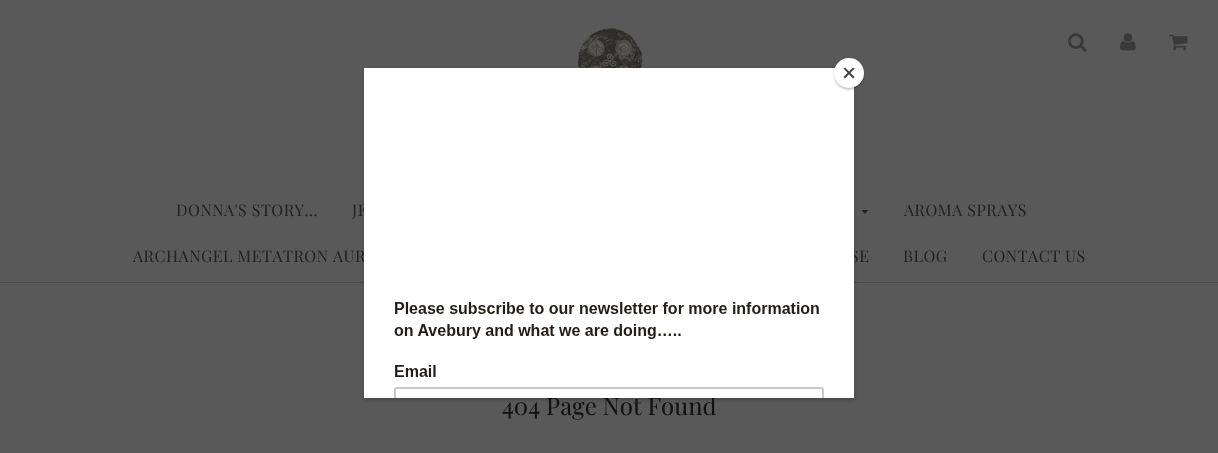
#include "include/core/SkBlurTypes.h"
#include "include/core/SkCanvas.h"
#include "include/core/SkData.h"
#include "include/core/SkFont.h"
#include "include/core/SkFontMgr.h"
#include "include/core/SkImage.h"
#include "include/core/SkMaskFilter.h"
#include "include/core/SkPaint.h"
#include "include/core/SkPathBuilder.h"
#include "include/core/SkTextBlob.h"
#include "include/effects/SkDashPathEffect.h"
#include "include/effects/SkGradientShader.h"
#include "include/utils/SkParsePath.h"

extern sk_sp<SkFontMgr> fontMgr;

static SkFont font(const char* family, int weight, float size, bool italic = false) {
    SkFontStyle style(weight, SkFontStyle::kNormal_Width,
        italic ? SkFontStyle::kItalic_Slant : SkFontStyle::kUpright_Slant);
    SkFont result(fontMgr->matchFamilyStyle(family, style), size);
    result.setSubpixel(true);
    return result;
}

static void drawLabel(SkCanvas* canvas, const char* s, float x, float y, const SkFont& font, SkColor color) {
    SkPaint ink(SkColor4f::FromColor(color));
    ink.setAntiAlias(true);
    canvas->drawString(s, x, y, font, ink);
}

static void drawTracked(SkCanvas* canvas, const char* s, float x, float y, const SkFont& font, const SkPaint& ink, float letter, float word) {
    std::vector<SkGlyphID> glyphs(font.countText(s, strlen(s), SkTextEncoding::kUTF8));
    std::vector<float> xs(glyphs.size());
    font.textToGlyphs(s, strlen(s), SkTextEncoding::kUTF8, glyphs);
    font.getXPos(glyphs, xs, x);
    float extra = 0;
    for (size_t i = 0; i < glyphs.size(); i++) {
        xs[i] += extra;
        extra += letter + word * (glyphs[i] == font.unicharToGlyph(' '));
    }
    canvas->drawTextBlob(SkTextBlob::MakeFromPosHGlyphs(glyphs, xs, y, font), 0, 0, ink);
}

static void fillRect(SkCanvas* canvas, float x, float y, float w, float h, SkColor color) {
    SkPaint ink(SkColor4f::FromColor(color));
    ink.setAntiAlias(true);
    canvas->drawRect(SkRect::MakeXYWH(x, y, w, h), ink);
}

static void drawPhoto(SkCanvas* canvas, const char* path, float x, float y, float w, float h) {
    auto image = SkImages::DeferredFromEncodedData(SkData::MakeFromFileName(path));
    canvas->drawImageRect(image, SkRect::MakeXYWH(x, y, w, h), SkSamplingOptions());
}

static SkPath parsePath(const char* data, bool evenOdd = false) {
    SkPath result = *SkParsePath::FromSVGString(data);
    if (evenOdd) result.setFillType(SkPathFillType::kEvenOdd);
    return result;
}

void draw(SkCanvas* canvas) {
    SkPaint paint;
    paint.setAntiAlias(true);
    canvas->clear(0xFF595959);
    fillRect(canvas, 0, 282, 1218, 1, 0xFF4A4A4A);
    drawPhoto(canvas, "assets/img2.png", 490, 28, 236, 40);
    paint.setColor(0x33000000);
    paint.setMaskFilter(SkMaskFilter::MakeBlur(kNormal_SkBlurStyle, 2));
    canvas->drawRect(SkRect::MakeXYWH(364, 70, 490, 330), paint);
    paint.setMaskFilter(nullptr);
    SkFont font1 = font("Playfair Display", 400, 16);
    paint.setColor(0xFF222222);
    drawTracked(canvas, "JE", 352, 216, font1, paint, 0.5f, 0);
    drawTracked(canvas, "ARCHANGEL METATRON AUR", 133, 262, font1, paint, 0.5f, 0);
    drawTracked(canvas, "SE", 850, 262, font1, paint, 0.5f, 0);
    SkFont font2 = font("Playfair Display", 400, 24);
    drawLabel(canvas, "404 Page Not Found", 502, 415, font2, 0xFF121212);
    drawPhoto(canvas, "assets/img1.png", 364, 68, 490, 330);
    paint.setColor(0x33000000);
    paint.setMaskFilter(SkMaskFilter::MakeBlur(kNormal_SkBlurStyle, 1));
    canvas->drawRoundRect(SkRect::MakeXYWH(834, 60, 30, 30), 15, 15, paint);
    paint.setMaskFilter(nullptr);
    paint.setColor(0xFFFFFFFF);
    canvas->drawCircle(849, 73, 15, paint);
    paint.setColor(0xFF414141);
    canvas->drawPath(parsePath("M853 67.5L854.5 68.5L845 78.5L843.5 77Z"), paint);
    canvas->drawPath(parsePath("M843.5 68.5L845 67.5L854.5 77L853 78.5Z"), paint);
    drawPhoto(canvas, "assets/img3.png", 1068, 33, 19, 19);
    drawPhoto(canvas, "assets/img4.png", 1120, 33, 16, 18);
    drawPhoto(canvas, "assets/img5.png", 1169, 34, 19, 17);
    paint.setColor(0xFF222222);
    drawTracked(canvas, "DONNA'S STORY...", 176, 216, font1, paint, 0.5f, 0);
    canvas->drawPath(parsePath("M861.5 210L865 214L868 210Z"), paint);
    drawTracked(canvas, "AROMA SPRAYS", 904, 216, font1, paint, 0.5f, 0);
    drawTracked(canvas, "BLOG", 903, 262, font1, paint, 0.5f, 0);
    drawTracked(canvas, "CONTACT US", 982, 262, font1, paint, 0.5f, 0);
}
